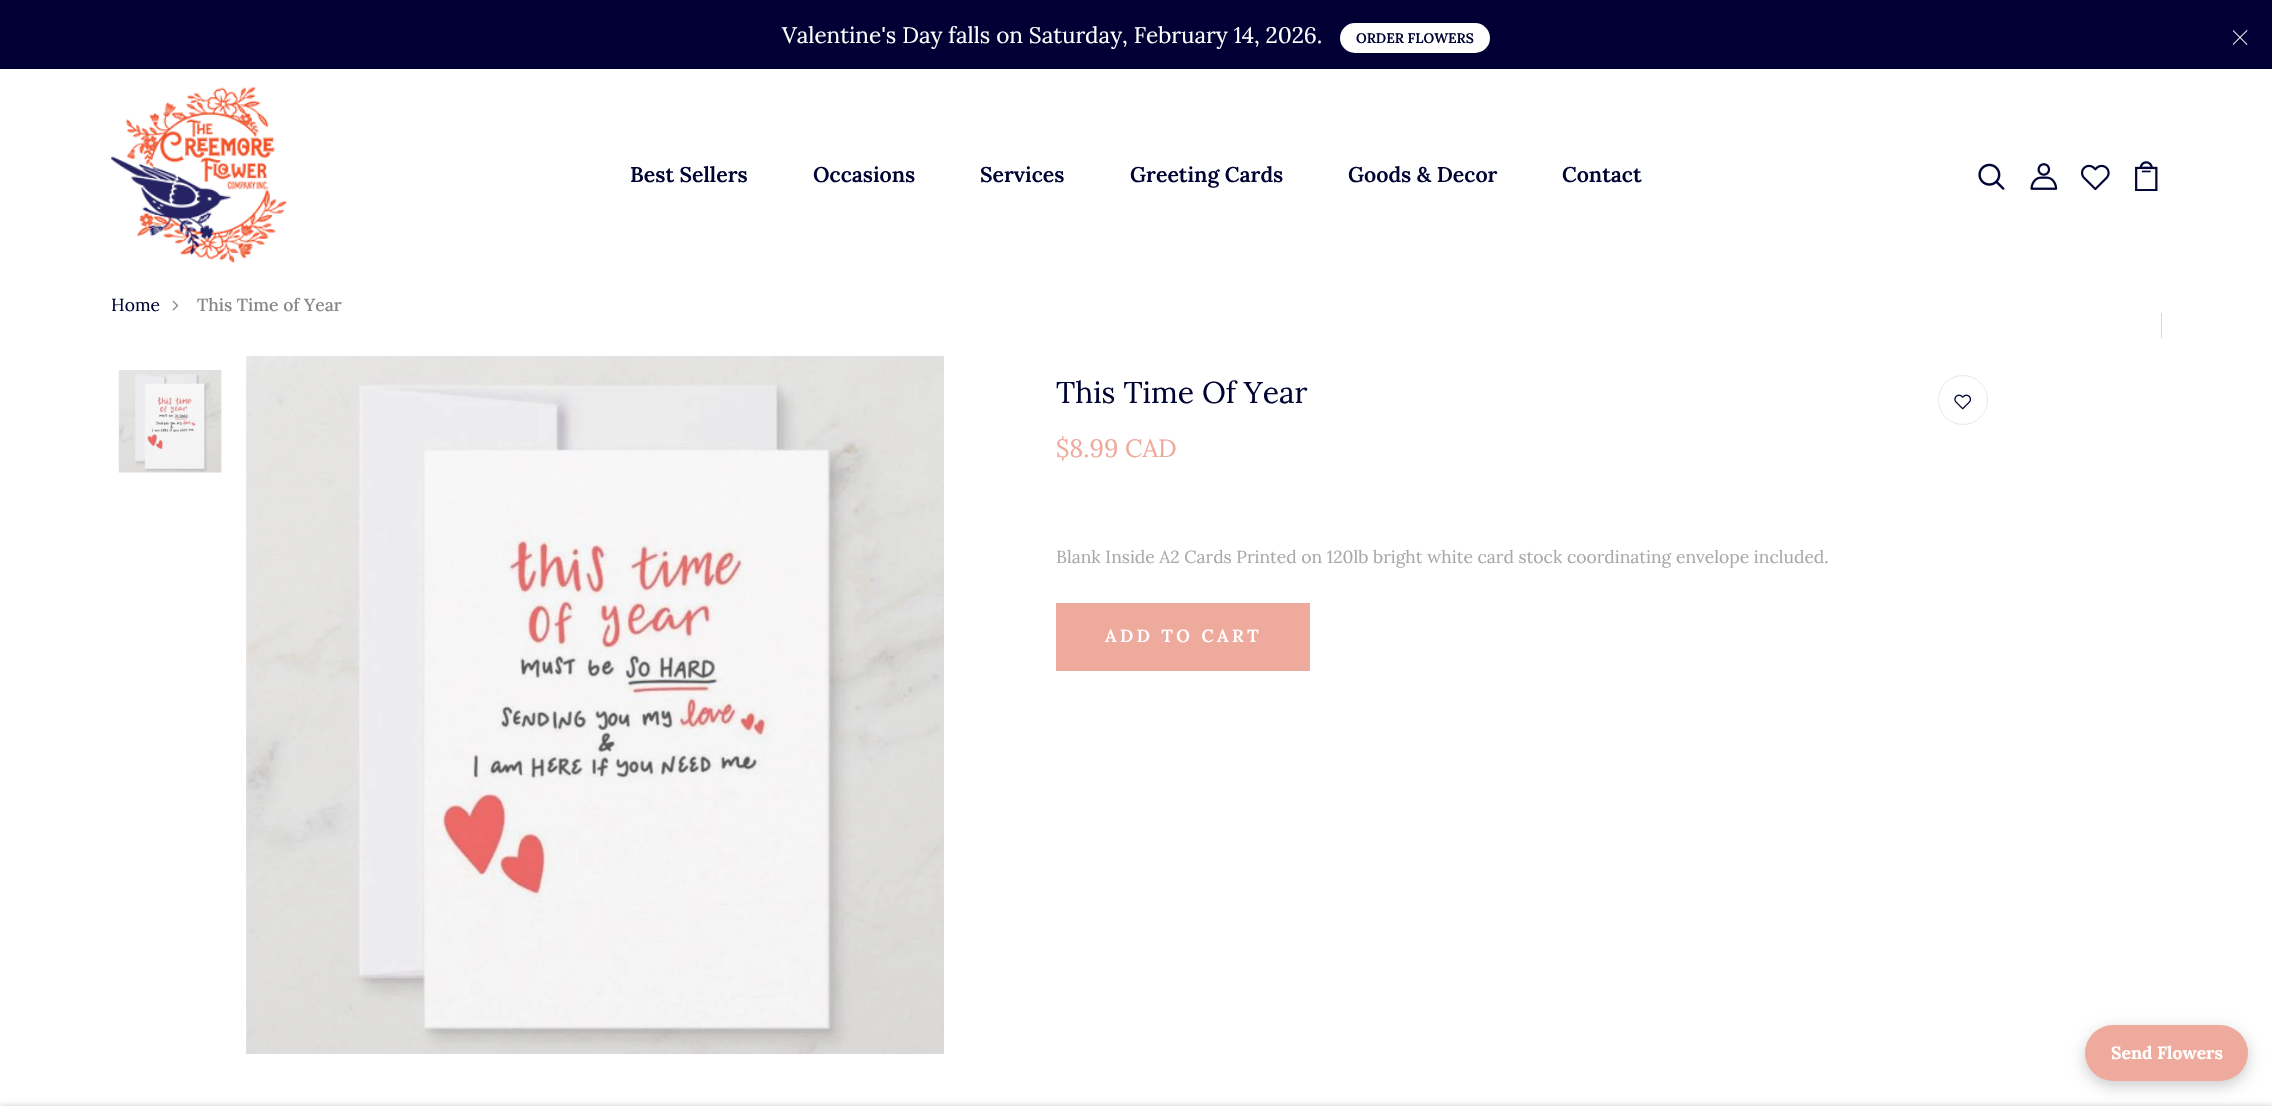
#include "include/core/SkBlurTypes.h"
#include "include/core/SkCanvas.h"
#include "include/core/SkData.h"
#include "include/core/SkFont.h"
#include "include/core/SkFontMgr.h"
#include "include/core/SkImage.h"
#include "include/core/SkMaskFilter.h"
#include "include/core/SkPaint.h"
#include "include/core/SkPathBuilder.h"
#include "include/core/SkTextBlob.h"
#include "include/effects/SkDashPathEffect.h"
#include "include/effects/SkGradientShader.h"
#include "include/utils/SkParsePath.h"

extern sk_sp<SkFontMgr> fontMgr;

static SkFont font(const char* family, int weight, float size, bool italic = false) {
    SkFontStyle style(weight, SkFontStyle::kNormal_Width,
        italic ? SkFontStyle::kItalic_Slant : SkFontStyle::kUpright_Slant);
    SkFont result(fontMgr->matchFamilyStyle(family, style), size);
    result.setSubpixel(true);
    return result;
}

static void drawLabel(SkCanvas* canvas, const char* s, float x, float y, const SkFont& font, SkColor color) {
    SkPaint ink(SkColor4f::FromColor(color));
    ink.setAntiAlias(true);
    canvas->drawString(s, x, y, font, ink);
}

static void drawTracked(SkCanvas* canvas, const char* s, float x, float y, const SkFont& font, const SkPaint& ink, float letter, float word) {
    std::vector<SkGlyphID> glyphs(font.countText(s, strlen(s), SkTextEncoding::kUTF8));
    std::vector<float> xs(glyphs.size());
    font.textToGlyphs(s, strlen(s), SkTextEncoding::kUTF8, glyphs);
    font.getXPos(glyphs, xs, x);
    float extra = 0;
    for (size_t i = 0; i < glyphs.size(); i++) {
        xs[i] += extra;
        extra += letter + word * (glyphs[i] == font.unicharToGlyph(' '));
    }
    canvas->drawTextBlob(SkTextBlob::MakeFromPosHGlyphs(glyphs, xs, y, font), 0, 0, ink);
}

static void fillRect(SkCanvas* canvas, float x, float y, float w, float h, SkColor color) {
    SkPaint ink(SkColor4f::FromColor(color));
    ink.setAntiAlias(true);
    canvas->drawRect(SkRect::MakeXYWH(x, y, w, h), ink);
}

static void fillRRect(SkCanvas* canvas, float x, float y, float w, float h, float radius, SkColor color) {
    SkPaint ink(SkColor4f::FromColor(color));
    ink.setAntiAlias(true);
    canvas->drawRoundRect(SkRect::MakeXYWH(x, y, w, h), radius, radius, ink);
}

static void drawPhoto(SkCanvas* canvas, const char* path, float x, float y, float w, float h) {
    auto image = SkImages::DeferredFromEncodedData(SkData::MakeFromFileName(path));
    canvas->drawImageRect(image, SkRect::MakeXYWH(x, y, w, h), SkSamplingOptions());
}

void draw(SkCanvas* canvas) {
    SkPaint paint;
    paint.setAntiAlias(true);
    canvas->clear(0xFFFFFFFF);
    fillRect(canvas, 0, 0, 2272, 69, 0xFF000035);
    SkFont font1 = font("Lora", 400, 22.5f);
    drawLabel(canvas, "Valentine's Day falls on Saturday, February 14, 2026.", 782, 43, font1, 0xFFFFFFFF);
    fillRRect(canvas, 1340, 23, 150, 30, 15, 0xFFFFFFFF);
    SkFont font2 = font("Lora", 600, 13.75f);
    drawLabel(canvas, "ORDER FLOWERS", 1356, 43, font2, 0xFF000333);
    drawPhoto(canvas, "assets/img1.png", 2233, 30, 15, 15);
    drawPhoto(canvas, "assets/img2.png", 111, 87, 176, 176);
    SkFont font3 = font("Lora", 600, 21.25f);
    drawLabel(canvas, "Best Sellers", 630, 182, font3, 0xFF000333);
    drawLabel(canvas, "Occasions", 813, 182, font3, 0xFF000333);
    drawLabel(canvas, "Services", 980, 182, font3, 0xFF000333);
    drawLabel(canvas, "Greeting Cards", 1130, 182, font3, 0xFF000333);
    drawLabel(canvas, "Goods & Decor", 1348, 182, font3, 0xFF000333);
    drawLabel(canvas, "Contact", 1562, 182, font3, 0xFF000333);
    drawPhoto(canvas, "assets/img3.png", 1978, 163, 27, 27);
    drawPhoto(canvas, "assets/img4.png", 2030, 163, 28, 27);
    drawPhoto(canvas, "assets/img5.png", 2081, 164, 29, 27);
    drawPhoto(canvas, "assets/img6.png", 2135, 161, 23, 30);
    SkFont font4 = font("Lora", 400, 17.5f);
    drawLabel(canvas, "Home", 111, 311, font4, 0xFF000333);
    drawPhoto(canvas, "assets/img7.png", 172, 300, 7, 11);
    SkFont font5 = font("Lora", 500, 17.5f);
    drawLabel(canvas, "This Time of Year", 197, 311, font5, 0xFF878787);
    fillRect(canvas, 2161, 313, 1, 25, 0xFFD6D6D6);
    drawPhoto(canvas, "assets/img8.png", 118, 370, 104, 103);
    drawPhoto(canvas, "assets/img9.png", 246, 356, 698, 698);
    SkFont font6 = font("Lora", 400, 30);
    drawLabel(canvas, "This Time Of Year", 1056, 403, font6, 0xFF000333);
    paint.setStroke(true);
    paint.setStrokeWidth(1);
    paint.setColor(0xFFE9E9E9);
    canvas->drawCircle(1963, 400, 24.5f, paint);
    drawPhoto(canvas, "assets/img10.png", 1954, 394, 17, 16);
    SkFont font7 = font("Lora", 400, 25);
    drawLabel(canvas, "$8.99 CAD", 1056, 457, font7, 0xFFEEAA9C);
    drawLabel(canvas, "Blank Inside A2 Cards Printed on 120lb bright white card stock coordinating envelope included.", 1056, 563, font4, 0xFFA8A8A8);
    fillRect(canvas, 1056, 603, 254, 68, 0xFFEEAA9C);
    SkFont font8 = font("Lora", 600, 17.5f);
    paint.setStroke(false);
    paint.setColor(0xFFFFFFFF);
    drawTracked(canvas, "ADD TO CART", 1105, 642, font8, paint, 3.5f, 0);
    paint.setColor(0x33000000);
    paint.setMaskFilter(SkMaskFilter::MakeBlur(kNormal_SkBlurStyle, 3));
    canvas->drawRect(SkRect::MakeXYWH(0, 1106, 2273, 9), paint);
    paint.setMaskFilter(nullptr);
    paint.setMaskFilter(SkMaskFilter::MakeBlur(kNormal_SkBlurStyle, 7.5f));
    canvas->drawRoundRect(SkRect::MakeXYWH(2085, 1030, 163, 56), 28, 28, paint);
    paint.setMaskFilter(nullptr);
    fillRRect(canvas, 2085, 1025, 163, 56, 28, 0xFFEEAA9C);
    SkFont font9 = font("Lora", 700, 17.5f);
    drawLabel(canvas, "Send Flowers", 2111, 1059, font9, 0xFFFFFFFF);
}
